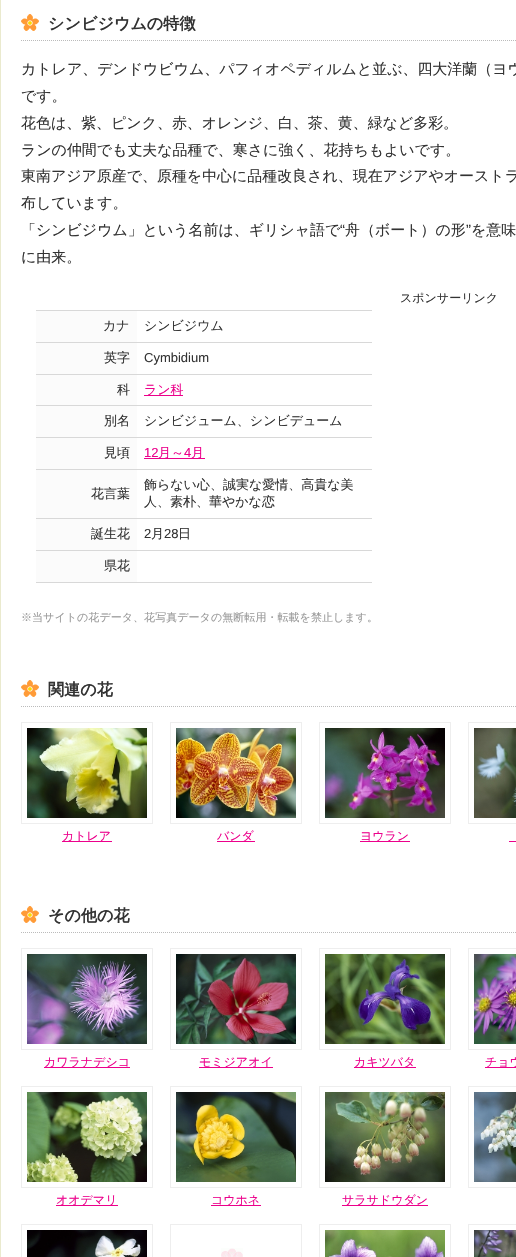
#include "include/core/SkBlurTypes.h"
#include "include/core/SkCanvas.h"
#include "include/core/SkData.h"
#include "include/core/SkFont.h"
#include "include/core/SkFontMgr.h"
#include "include/core/SkImage.h"
#include "include/core/SkMaskFilter.h"
#include "include/core/SkPaint.h"
#include "include/core/SkPathBuilder.h"
#include "include/core/SkTextBlob.h"
#include "include/effects/SkDashPathEffect.h"
#include "include/effects/SkGradientShader.h"
#include "include/utils/SkParsePath.h"

extern sk_sp<SkFontMgr> fontMgr;

static SkFont font(const char* family, int weight, float size, bool italic = false) {
    SkFontStyle style(weight, SkFontStyle::kNormal_Width,
        italic ? SkFontStyle::kItalic_Slant : SkFontStyle::kUpright_Slant);
    SkFont result(fontMgr->matchFamilyStyle(family, style), size);
    result.setSubpixel(true);
    return result;
}

static void drawLabel(SkCanvas* canvas, const char* s, float x, float y, const SkFont& font, SkColor color) {
    SkPaint ink(SkColor4f::FromColor(color));
    ink.setAntiAlias(true);
    canvas->drawString(s, x, y, font, ink);
}

static void fillRect(SkCanvas* canvas, float x, float y, float w, float h, SkColor color) {
    SkPaint ink(SkColor4f::FromColor(color));
    ink.setAntiAlias(true);
    canvas->drawRect(SkRect::MakeXYWH(x, y, w, h), ink);
}

static void drawPhoto(SkCanvas* canvas, const char* path, float x, float y, float w, float h) {
    auto image = SkImages::DeferredFromEncodedData(SkData::MakeFromFileName(path));
    canvas->drawImageRect(image, SkRect::MakeXYWH(x, y, w, h), SkSamplingOptions());
}

static SkPath parsePath(const char* data, bool evenOdd = false) {
    SkPath result = *SkParsePath::FromSVGString(data);
    if (evenOdd) result.setFillType(SkPathFillType::kEvenOdd);
    return result;
}

void draw(SkCanvas* canvas) {
    SkPaint paint;
    paint.setAntiAlias(true);
    canvas->clear(0xFFFFFFFF);
    paint.setStroke(true);
    paint.setStrokeWidth(1);
    paint.setColor(0xFFEAEACE);
    canvas->drawRect(SkRect::MakeXYWH(0.5f, -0.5f, 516, 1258), paint);
    drawPhoto(canvas, "assets/img1.png", 21, 14, 18, 17);
    paint.setColor(0xFFBBBBBB);
    paint.setPathEffect(SkDashPathEffect::Make({{1, 1}}, 0));
    canvas->drawPath(parsePath("M21 40.5H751"), paint);
    paint.setPathEffect(nullptr);
    SkFont font1 = font("WenQuanYi Zen Hei", 700, 16.1f);
    drawLabel(canvas, "シンビジウムの特徴", 48, 29, font1, 0xFF333333);
    SkFont font2 = font("WenQuanYi Zen Hei", 500, 14.95f);
    drawLabel(canvas, "カトレア、デンドウビウム、パフィオペディルムと並ぶ、四大洋蘭（ヨウ", 21, 74, font2, 0xFF333333);
    drawLabel(canvas, "です。", 21, 101, font2, 0xFF333333);
    drawLabel(canvas, "花色は、紫、ピンク、赤、オレンジ、白、茶、黄、緑など多彩。", 21, 128, font2, 0xFF333333);
    drawLabel(canvas, "ランの仲間でも丈夫な品種で、寒さに強く、花持ちもよいです。", 21, 155, font2, 0xFF333333);
    drawLabel(canvas, "東南アジア原産で、原種を中心に品種改良され、現在アジアやオーストラ", 21, 181, font2, 0xFF333333);
    drawLabel(canvas, "布しています。", 21, 208, font2, 0xFF333333);
    drawLabel(canvas, "「シンビジウム」という名前は、ギリシャ語で", 21, 235, font2, 0xFF333333);
    SkFont font3 = font("Liberation Sans", 400, 14.95f);
    drawLabel(canvas, "“", 340, 235, font3, 0xFF333333);
    drawLabel(canvas, "舟（ボート）の形", 345, 235, font2, 0xFF333333);
    drawLabel(canvas, "”", 466, 235, font3, 0xFF333333);
    drawLabel(canvas, "を意味", 471, 235, font2, 0xFF333333);
    drawLabel(canvas, "に由来。", 21, 262, font2, 0xFF333333);
    SkFont font4 = font("WenQuanYi Zen Hei", 500, 12);
    drawLabel(canvas, "スポンサーリンク", 400, 302, font4, 0xFF333333);
    fillRect(canvas, 36, 310, 336, 1, 0xFFD8D8D8);
    fillRect(canvas, 36, 582, 336, 1, 0xFFD8D8D8);
    fillRect(canvas, 36, 311, 101, 31, 0xFFFBFBFB);
    SkFont font5 = font("WenQuanYi Zen Hei", 500, 13);
    drawLabel(canvas, "カナ", 103, 330, font5, 0xFF333333);
    drawLabel(canvas, "シンビジウム", 144, 330, font5, 0xFF333333);
    fillRect(canvas, 36, 343, 101, 31, 0xFFFBFBFB);
    drawLabel(canvas, "英字", 104, 362, font5, 0xFF333333);
    fillRect(canvas, 36, 342, 336, 1, 0xFFD8D8D8);
    SkFont font6 = font("Liberation Sans", 400, 13);
    drawLabel(canvas, "Cymbidium", 144, 362, font6, 0xFF333333);
    fillRect(canvas, 36, 375, 101, 30, 0xFFFBFBFB);
    drawLabel(canvas, "科", 117, 394, font5, 0xFF333333);
    fillRect(canvas, 36, 374, 336, 1, 0xFFD8D8D8);
    fillRect(canvas, 144, 395, 39, 1, 0xFFEC008B);
    drawLabel(canvas, "ラン科", 144, 394, font5, 0xFFEC008B);
    fillRect(canvas, 36, 406, 101, 31, 0xFFFBFBFB);
    drawLabel(canvas, "別名", 104, 425, font5, 0xFF333333);
    fillRect(canvas, 36, 405, 336, 1, 0xFFD8D8D8);
    drawLabel(canvas, "シンビジューム、シンビデューム", 144, 425, font5, 0xFF333333);
    fillRect(canvas, 36, 438, 101, 31, 0xFFFBFBFB);
    drawLabel(canvas, "見頃", 104, 457, font5, 0xFF333333);
    fillRect(canvas, 36, 437, 336, 1, 0xFFD8D8D8);
    drawLabel(canvas, "12", 144, 457, font6, 0xFFEC008B);
    fillRect(canvas, 144, 458, 61, 1, 0xFFEC008B);
    drawLabel(canvas, "月～", 158, 457, font5, 0xFFEC008B);
    drawLabel(canvas, "4", 184, 457, font6, 0xFFEC008B);
    drawLabel(canvas, "月", 191, 457, font5, 0xFFEC008B);
    fillRect(canvas, 36, 470, 101, 48, 0xFFFBFBFB);
    drawLabel(canvas, "花言葉", 91, 498, font5, 0xFF333333);
    fillRect(canvas, 36, 469, 336, 1, 0xFFD8D8D8);
    drawLabel(canvas, "飾らない心、誠実な愛情、高貴な美", 144, 489, font5, 0xFF333333);
    drawLabel(canvas, "人、素朴、華やかな恋", 144, 506, font5, 0xFF333333);
    fillRect(canvas, 36, 519, 101, 31, 0xFFFBFBFB);
    drawLabel(canvas, "誕生花", 91, 538, font5, 0xFF333333);
    fillRect(canvas, 36, 518, 336, 1, 0xFFD8D8D8);
    drawLabel(canvas, "2", 144, 538, font6, 0xFF333333);
    drawLabel(canvas, "月", 151, 538, font5, 0xFF333333);
    drawLabel(canvas, "28", 164, 538, font6, 0xFF333333);
    drawLabel(canvas, "日", 178, 538, font5, 0xFF333333);
    fillRect(canvas, 36, 550, 336, 1, 0xFFD8D8D8);
    fillRect(canvas, 36, 551, 101, 31, 0xFFFBFBFB);
    drawLabel(canvas, "県花", 104, 570, font5, 0xFF333333);
    SkFont font7 = font("WenQuanYi Zen Hei", 500, 11.05f);
    drawLabel(canvas, "※当サイトの花データ、花写真データの無断転用・転載を禁止します。", 21, 621, font7, 0xFF999999);
    drawPhoto(canvas, "assets/img1.png", 21, 680, 18, 17);
    paint.setPathEffect(SkDashPathEffect::Make({{1, 1}}, 0));
    canvas->drawPath(parsePath("M21 706.5H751"), paint);
    paint.setPathEffect(nullptr);
    drawLabel(canvas, "関連の花", 48, 695, font1, 0xFF333333);
    paint.setColor(0xFFEEEEEE);
    canvas->drawRect(SkRect::MakeXYWH(21.5f, 722.5f, 131, 101), paint);
    drawPhoto(canvas, "assets/img2.png", 27, 728, 120, 90);
    fillRect(canvas, 62, 841, 50, 1, 0xFFEC008B);
    drawLabel(canvas, "カトレア", 62, 840, font4, 0xFFEC008B);
    canvas->drawRect(SkRect::MakeXYWH(170.5f, 722.5f, 131, 101), paint);
    drawPhoto(canvas, "assets/img3.png", 176, 728, 120, 90);
    fillRect(canvas, 217, 841, 38, 1, 0xFFEC008B);
    drawLabel(canvas, "バンダ", 217, 840, font4, 0xFFEC008B);
    canvas->drawRect(SkRect::MakeXYWH(319.5f, 722.5f, 131, 101), paint);
    drawPhoto(canvas, "assets/img4.png", 325, 728, 120, 90);
    fillRect(canvas, 360, 841, 50, 1, 0xFFEC008B);
    drawLabel(canvas, "ヨウラン", 360, 840, font4, 0xFFEC008B);
    canvas->drawRect(SkRect::MakeXYWH(468.5f, 722.5f, 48, 101), paint);
    drawPhoto(canvas, "assets/img5.png", 474, 728, 42, 90);
    fillRect(canvas, 509, 841, 7, 1, 0xFFEC008B);
    drawPhoto(canvas, "assets/img1.png", 21, 906, 18, 17);
    paint.setColor(0xFFBBBBBB);
    paint.setPathEffect(SkDashPathEffect::Make({{1, 1}}, 0));
    canvas->drawPath(parsePath("M21 932.5H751"), paint);
    paint.setPathEffect(nullptr);
    drawLabel(canvas, "その他の花", 48, 921, font1, 0xFF333333);
    paint.setColor(0xFFEEEEEE);
    canvas->drawRect(SkRect::MakeXYWH(21.5f, 948.5f, 131, 101), paint);
    drawPhoto(canvas, "assets/img6.png", 27, 954, 120, 90);
    fillRect(canvas, 44, 1067, 86, 1, 0xFFEC008B);
    drawLabel(canvas, "カワラナデシコ", 44, 1066, font4, 0xFFEC008B);
    canvas->drawRect(SkRect::MakeXYWH(170.5f, 948.5f, 131, 101), paint);
    drawPhoto(canvas, "assets/img7.png", 176, 954, 120, 90);
    fillRect(canvas, 199, 1067, 74, 1, 0xFFEC008B);
    drawLabel(canvas, "モミジアオイ", 199, 1066, font4, 0xFFEC008B);
    canvas->drawRect(SkRect::MakeXYWH(319.5f, 948.5f, 131, 101), paint);
    drawPhoto(canvas, "assets/img8.png", 325, 954, 120, 90);
    fillRect(canvas, 354, 1067, 62, 1, 0xFFEC008B);
    drawLabel(canvas, "カキツバタ", 354, 1066, font4, 0xFFEC008B);
    canvas->drawRect(SkRect::MakeXYWH(468.5f, 948.5f, 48, 101), paint);
    drawPhoto(canvas, "assets/img9.png", 474, 954, 42, 90);
    fillRect(canvas, 485, 1067, 31, 1, 0xFFEC008B);
    drawLabel(canvas, "チョウ", 485, 1066, font4, 0xFFEC008B);
    canvas->drawRect(SkRect::MakeXYWH(468.5f, 1086.5f, 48, 101), paint);
    drawPhoto(canvas, "assets/img10.png", 474, 1092, 42, 90);
    canvas->drawRect(SkRect::MakeXYWH(21.5f, 1086.5f, 131, 101), paint);
    drawPhoto(canvas, "assets/img11.png", 27, 1092, 120, 90);
    fillRect(canvas, 56, 1205, 62, 1, 0xFFEC008B);
    drawLabel(canvas, "オオデマリ", 56, 1204, font4, 0xFFEC008B);
    canvas->drawRect(SkRect::MakeXYWH(170.5f, 1086.5f, 131, 101), paint);
    drawPhoto(canvas, "assets/img12.png", 176, 1092, 120, 90);
    fillRect(canvas, 211, 1205, 50, 1, 0xFFEC008B);
    drawLabel(canvas, "コウホネ", 211, 1204, font4, 0xFFEC008B);
    canvas->drawRect(SkRect::MakeXYWH(319.5f, 1086.5f, 131, 101), paint);
    drawPhoto(canvas, "assets/img13.png", 325, 1092, 120, 90);
    fillRect(canvas, 342, 1205, 86, 1, 0xFFEC008B);
    drawLabel(canvas, "サラサドウダン", 342, 1204, font4, 0xFFEC008B);
    canvas->drawRect(SkRect::MakeXYWH(21.5f, 1224.5f, 131, 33), paint);
    drawPhoto(canvas, "assets/img14.png", 27, 1230, 120, 27);
    canvas->drawRect(SkRect::MakeXYWH(170.5f, 1224.5f, 131, 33), paint);
    drawPhoto(canvas, "assets/img15.png", 221, 1248, 22, 9);
    canvas->drawRect(SkRect::MakeXYWH(319.5f, 1224.5f, 131, 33), paint);
    drawPhoto(canvas, "assets/img16.png", 325, 1230, 120, 27);
    canvas->drawRect(SkRect::MakeXYWH(468.5f, 1224.5f, 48, 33), paint);
    drawPhoto(canvas, "assets/img17.png", 474, 1230, 42, 27);
}
